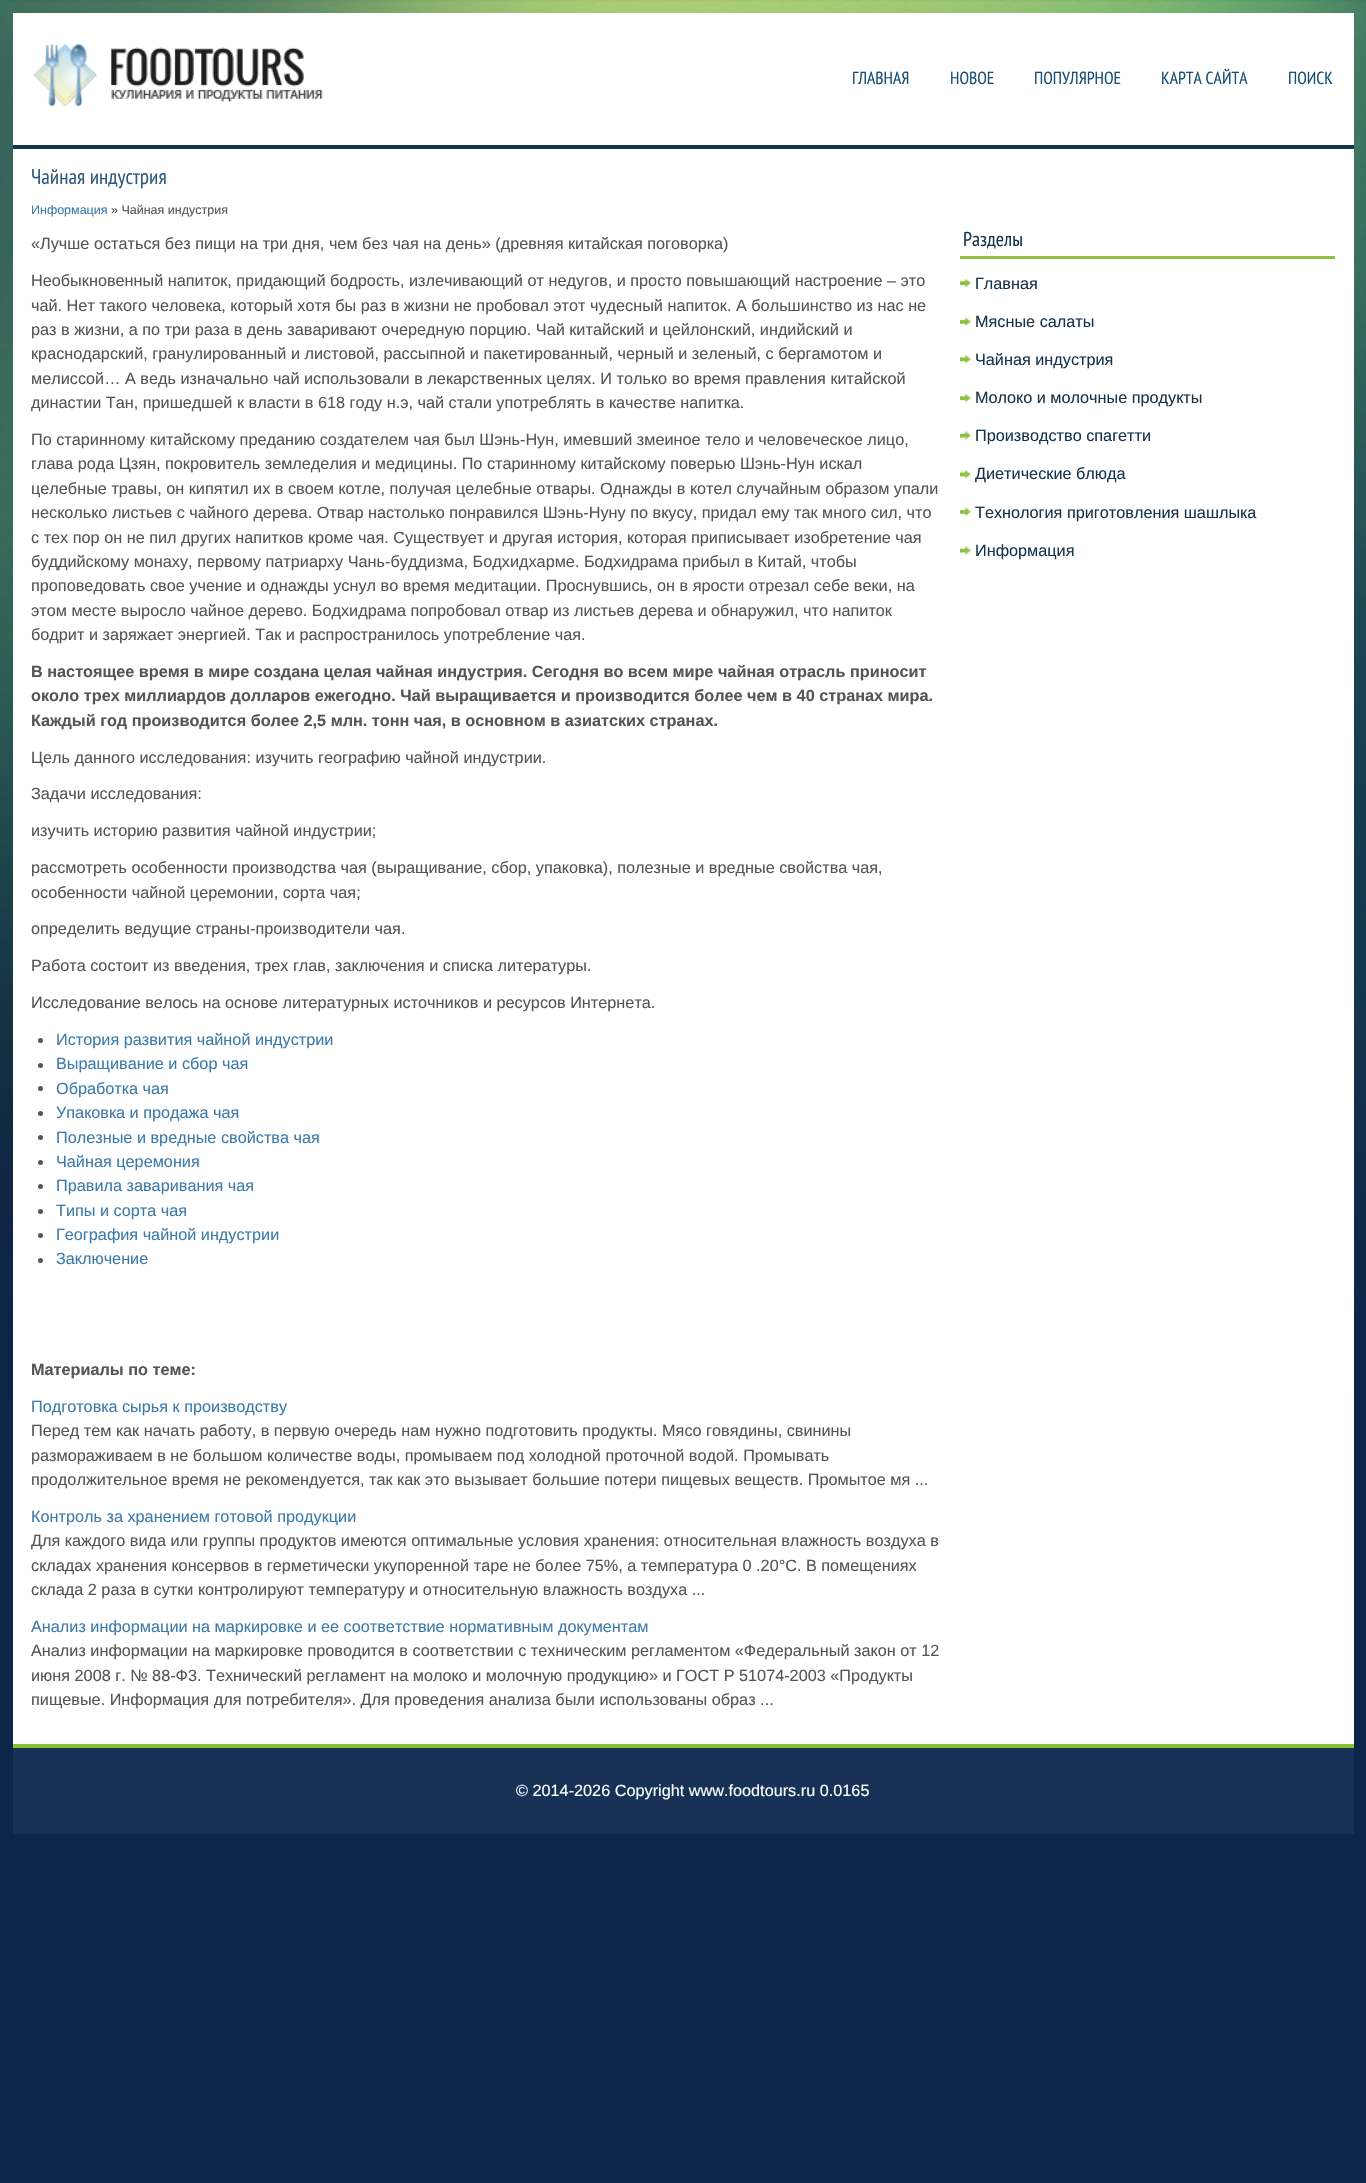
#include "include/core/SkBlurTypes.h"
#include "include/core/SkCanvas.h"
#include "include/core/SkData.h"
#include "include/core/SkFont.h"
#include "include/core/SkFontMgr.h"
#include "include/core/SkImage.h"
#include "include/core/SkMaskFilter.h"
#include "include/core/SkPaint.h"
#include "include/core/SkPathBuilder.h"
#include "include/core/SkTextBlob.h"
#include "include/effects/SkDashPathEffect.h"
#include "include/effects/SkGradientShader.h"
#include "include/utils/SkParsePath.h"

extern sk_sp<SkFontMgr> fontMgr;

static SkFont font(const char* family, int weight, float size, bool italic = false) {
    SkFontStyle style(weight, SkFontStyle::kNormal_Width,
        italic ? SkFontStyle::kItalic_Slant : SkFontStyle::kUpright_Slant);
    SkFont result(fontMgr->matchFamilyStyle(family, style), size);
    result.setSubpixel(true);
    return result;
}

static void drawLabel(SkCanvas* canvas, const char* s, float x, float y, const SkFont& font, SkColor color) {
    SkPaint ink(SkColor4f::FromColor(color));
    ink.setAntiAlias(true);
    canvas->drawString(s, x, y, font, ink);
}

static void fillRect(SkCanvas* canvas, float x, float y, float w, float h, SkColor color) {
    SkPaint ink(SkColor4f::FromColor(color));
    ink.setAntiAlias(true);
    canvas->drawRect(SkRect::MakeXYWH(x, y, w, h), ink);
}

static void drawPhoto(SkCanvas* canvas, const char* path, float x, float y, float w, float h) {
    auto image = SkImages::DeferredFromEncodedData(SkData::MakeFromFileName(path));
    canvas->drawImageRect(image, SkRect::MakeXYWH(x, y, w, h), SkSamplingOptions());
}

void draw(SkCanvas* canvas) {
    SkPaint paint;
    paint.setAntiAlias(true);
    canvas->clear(0xFF0C2549);
    drawPhoto(canvas, "assets/img1.png", 0, 0, 1366, 1400);
    fillRect(canvas, 13, 13, 1341, 1731, 0xFFFFFFFF);
    drawPhoto(canvas, "assets/img2.png", 33, 43, 290, 64);
    SkFont font1 = font("PT Sans Narrow", 400, 17.5f);
    drawLabel(canvas, "ГЛАВНАЯ", 852, 84, font1, 0xFF184E73);
    drawLabel(canvas, "НОВОЕ", 950, 84, font1, 0xFF184E73);
    drawLabel(canvas, "ПОПУЛЯРНОЕ", 1034, 84, font1, 0xFF184E73);
    drawLabel(canvas, "КАРТА САЙТА", 1161, 84, font1, 0xFF184E73);
    drawLabel(canvas, "ПОИСК", 1288, 84, font1, 0xFF184E73);
    fillRect(canvas, 13, 145, 1341, 4, 0xFF15344D);
    SkFont font2 = font("PT Sans Narrow", 400, 21.25f);
    drawLabel(canvas, "Чайная индустрия", 31, 184, font2, 0xFF2F5B7F);
    SkFont font3 = font("Liberation Sans", 400, 12.5f);
    drawLabel(canvas, "Информация", 31, 214, font3, 0xFF3C7AAB);
    drawLabel(canvas, "» Чайная индустрия", 111, 214, font3, 0xFF555555);
    SkFont font4 = font("Liberation Sans", 400, 16.25f);
    drawLabel(canvas, "«Лучше остаться без пищи на три дня, чем без чая на день» (древняя китайская поговорка)", 31, 249, font4, 0xFF555555);
    drawLabel(canvas, "Необыкновенный напиток, придающий бодрость, излечивающий от недугов, и просто повышающий настроение – это", 31, 286, font4, 0xFF555555);
    drawLabel(canvas, "чай. Нет такого человека, который хотя бы раз в жизни не пробовал этот чудесный напиток. А большинство из нас не", 31, 311, font4, 0xFF555555);
    drawLabel(canvas, "раз в жизни, а по три раза в день заваривают очередную порцию. Чай китайский и цейлонский, индийский и", 31, 335, font4, 0xFF555555);
    drawLabel(canvas, "краснодарский, гранулированный и листовой, рассыпной и пакетированный, черный и зеленый, с бергамотом и", 31, 359, font4, 0xFF555555);
    drawLabel(canvas, "мелиссой… А ведь изначально чай использовали в лекарственных целях. И только во время правления китайской", 31, 384, font4, 0xFF555555);
    drawLabel(canvas, "династии Тан, пришедшей к власти в 618 году н.э, чай стали употреблять в качестве напитка.", 31, 408, font4, 0xFF555555);
    drawLabel(canvas, "По старинному китайскому преданию создателем чая был Шэнь-Нун, имевший змеиное тело и человеческое лицо,", 31, 445, font4, 0xFF555555);
    drawLabel(canvas, "глава рода Цзян, покровитель земледелия и медицины. По старинному китайскому поверью Шэнь-Нун искал", 31, 469, font4, 0xFF555555);
    drawLabel(canvas, "целебные травы, он кипятил их в своем котле, получая целебные отвары. Однажды в котел случайным образом упали", 31, 494, font4, 0xFF555555);
    drawLabel(canvas, "несколько листьев с чайного дерева. Отвар настолько понравился Шэнь-Нуну по вкусу, придал ему так много сил, что", 31, 518, font4, 0xFF555555);
    drawLabel(canvas, "с тех пор он не пил других напитков кроме чая. Существует и другая история, которая приписывает изобретение чая", 31, 543, font4, 0xFF555555);
    drawLabel(canvas, "буддийскому монаху, первому патриарху Чань-буддизма, Бодхидхарме. Бодхидрама прибыл в Китай, чтобы", 31, 567, font4, 0xFF555555);
    drawLabel(canvas, "проповедовать свое учение и однажды уснул во время медитации. Проснувшись, он в ярости отрезал себе веки, на", 31, 591, font4, 0xFF555555);
    drawLabel(canvas, "этом месте выросло чайное дерево. Бодхидрама попробовал отвар из листьев дерева и обнаружил, что напиток", 31, 616, font4, 0xFF555555);
    drawLabel(canvas, "бодрит и заряжает энергией. Так и распространилось употребление чая.", 31, 640, font4, 0xFF555555);
    SkFont font5 = font("Liberation Sans", 700, 16.25f);
    drawLabel(canvas, "В настоящее время в мире создана целая чайная индустрия. Сегодня во всем мире чайная отрасль приносит", 31, 677, font5, 0xFF555555);
    drawLabel(canvas, "около трех миллиардов долларов ежегодно. Чай выращивается и производится более чем в 40 странах мира.", 31, 701, font5, 0xFF555555);
    drawLabel(canvas, "Каждый год производится более 2,5 млн. тонн чая, в основном в азиатских странах.", 31, 726, font5, 0xFF555555);
    drawLabel(canvas, "Цель данного исследования: изучить географию чайной индустрии.", 31, 763, font4, 0xFF555555);
    drawLabel(canvas, "Задачи исследования:", 31, 799, font4, 0xFF555555);
    drawLabel(canvas, "изучить историю развития чайной индустрии;", 31, 836, font4, 0xFF555555);
    drawLabel(canvas, "рассмотреть особенности производства чая (выращивание, сбор, упаковка), полезные и вредные свойства чая,", 31, 873, font4, 0xFF555555);
    drawLabel(canvas, "особенности чайной церемонии, сорта чая;", 31, 898, font4, 0xFF555555);
    drawLabel(canvas, "определить ведущие страны-производители чая.", 31, 934, font4, 0xFF555555);
    drawLabel(canvas, "Работа состоит из введения, трех глав, заключения и списка литературы.", 31, 971, font4, 0xFF555555);
    drawLabel(canvas, "Исследование велось на основе литературных источников и ресурсов Интернета.", 31, 1008, font4, 0xFF555555);
    paint.setColor(0xFF555555);
    canvas->drawCircle(40.5f, 1040.5f, 2.5f, paint);
    drawLabel(canvas, "История развития чайной индустрии", 56, 1045, font4, 0xFF3C7AAB);
    canvas->drawCircle(40.5f, 1065.5f, 2.5f, paint);
    drawLabel(canvas, "Выращивание и сбор чая", 56, 1069, font4, 0xFF3C7AAB);
    canvas->drawCircle(40.5f, 1088.5f, 2.5f, paint);
    drawLabel(canvas, "Обработка чая", 56, 1094, font4, 0xFF3C7AAB);
    canvas->drawCircle(40.5f, 1113.5f, 2.5f, paint);
    drawLabel(canvas, "Упаковка и продажа чая", 56, 1118, font4, 0xFF3C7AAB);
    canvas->drawCircle(40.5f, 1137.5f, 2.5f, paint);
    drawLabel(canvas, "Полезные и вредные свойства чая", 56, 1143, font4, 0xFF3C7AAB);
    canvas->drawCircle(40.5f, 1162.5f, 2.5f, paint);
    drawLabel(canvas, "Чайная церемония", 56, 1167, font4, 0xFF3C7AAB);
    canvas->drawCircle(40.5f, 1186.5f, 2.5f, paint);
    drawLabel(canvas, "Правила заваривания чая", 56, 1191, font4, 0xFF3C7AAB);
    canvas->drawCircle(40.5f, 1211.5f, 2.5f, paint);
    drawLabel(canvas, "Типы и сорта чая", 56, 1216, font4, 0xFF3C7AAB);
    canvas->drawCircle(40.5f, 1235.5f, 2.5f, paint);
    drawLabel(canvas, "География чайной индустрии", 56, 1240, font4, 0xFF3C7AAB);
    canvas->drawCircle(40.5f, 1260.5f, 2.5f, paint);
    drawLabel(canvas, "Заключение", 56, 1264, font4, 0xFF3C7AAB);
    drawLabel(canvas, "Материалы по теме:", 31, 1375, font5, 0xFF555555);
    drawLabel(canvas, "Подготовка сырья к производству", 31, 1412, font4, 0xFF3C7AAB);
    drawLabel(canvas, "Перед тем как начать работу, в первую очередь нам нужно подготовить продукты. Мясо говядины, свинины", 31, 1436, font4, 0xFF555555);
    drawLabel(canvas, "размораживаем в не большом количестве воды, промываем под холодной проточной водой. Промывать", 31, 1461, font4, 0xFF555555);
    drawLabel(canvas, "продолжительное время не рекомендуется, так как это вызывает большие потери пищевых веществ. Промытое мя ...", 31, 1485, font4, 0xFF555555);
    drawLabel(canvas, "Контроль за хранением готовой продукции", 31, 1522, font4, 0xFF3C7AAB);
    drawLabel(canvas, "Для каждого вида или группы продуктов имеются оптимальные условия хранения: относительная влажность воздуха в", 31, 1546, font4, 0xFF555555);
    drawLabel(canvas, "складах хранения консервов в герметически укупоренной таре не более 75%, а температура 0 .20°С. В помещениях", 31, 1571, font4, 0xFF555555);
    drawLabel(canvas, "склада 2 раза в сутки контролируют температуру и относительную влажность воздуха ...", 31, 1595, font4, 0xFF555555);
    drawLabel(canvas, "Анализ информации на маркировке и ее соответствие нормативным документам", 31, 1632, font4, 0xFF3C7AAB);
    drawLabel(canvas, "Анализ информации на маркировке проводится в соответствии с техническим регламентом «Федеральный закон от 12", 31, 1656, font4, 0xFF555555);
    drawLabel(canvas, "июня 2008 г. № 88-Ф3. Технический регламент на молоко и молочную продукцию» и ГОСТ Р 51074-2003 «Продукты", 31, 1681, font4, 0xFF555555);
    drawLabel(canvas, "пищевые. Информация для потребителя». Для проведения анализа были использованы образ ...", 31, 1705, font4, 0xFF555555);
    fillRect(canvas, 960, 256, 375, 3, 0xFF8CC142);
    SkFont font6 = font("PT Sans Narrow", 400, 20);
    drawLabel(canvas, "Разделы", 963, 246, font6, 0xFF15344D);
    drawPhoto(canvas, "assets/img3.png", 960, 278, 12, 10);
    drawLabel(canvas, "Главная", 975, 289, font4, 0xFF15344D);
    drawPhoto(canvas, "assets/img4.png", 960, 317, 12, 10);
    drawLabel(canvas, "Мясные салаты", 975, 327, font4, 0xFF15344D);
    drawPhoto(canvas, "assets/img5.png", 960, 355, 12, 9);
    drawLabel(canvas, "Чайная индустрия", 975, 365, font4, 0xFF15344D);
    drawPhoto(canvas, "assets/img3.png", 960, 393, 12, 10);
    drawLabel(canvas, "Молоко и молочные продукты", 975, 403, font4, 0xFF15344D);
    drawPhoto(canvas, "assets/img6.png", 960, 431, 12, 9);
    drawLabel(canvas, "Производство спагетти", 975, 441, font4, 0xFF15344D);
    drawPhoto(canvas, "assets/img5.png", 960, 470, 12, 9);
    drawLabel(canvas, "Диетические блюда", 975, 479, font4, 0xFF15344D);
    drawPhoto(canvas, "assets/img4.png", 960, 507, 12, 10);
    drawLabel(canvas, "Технология приготовления шашлыка", 975, 518, font4, 0xFF15344D);
    drawPhoto(canvas, "assets/img6.png", 960, 546, 12, 9);
    drawLabel(canvas, "Информация", 975, 556, font4, 0xFF15344D);
    fillRect(canvas, 13, 1748, 1341, 86, 0xFF173256);
    fillRect(canvas, 13, 1744, 1341, 4, 0xFF87C331);
    drawLabel(canvas, "© 2014-2026 Copyright www.foodtours.ru 0.0165", 516, 1796, font4, 0xFFFFFFFF);
}
